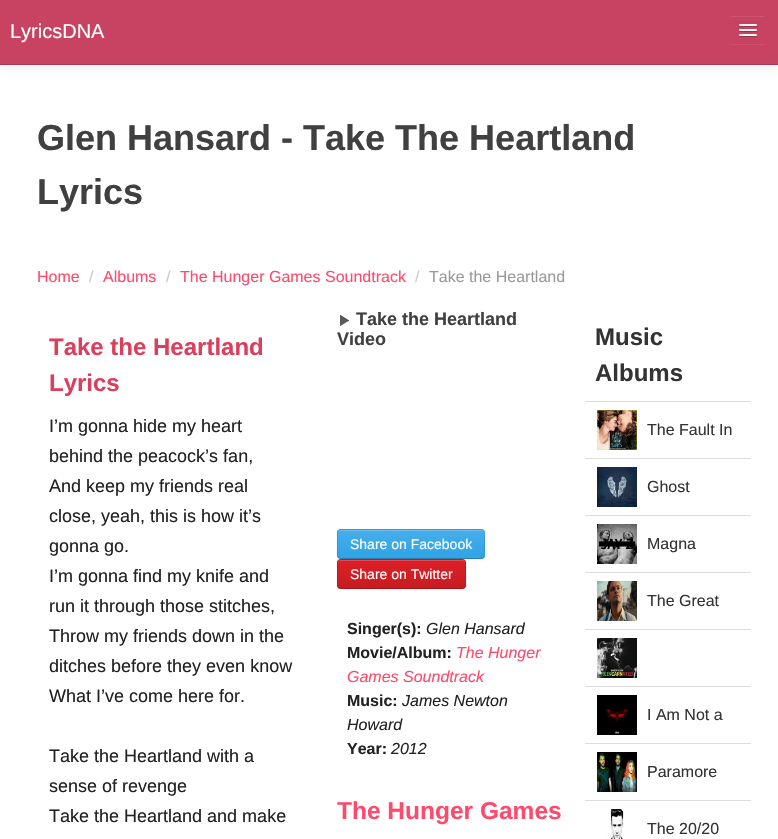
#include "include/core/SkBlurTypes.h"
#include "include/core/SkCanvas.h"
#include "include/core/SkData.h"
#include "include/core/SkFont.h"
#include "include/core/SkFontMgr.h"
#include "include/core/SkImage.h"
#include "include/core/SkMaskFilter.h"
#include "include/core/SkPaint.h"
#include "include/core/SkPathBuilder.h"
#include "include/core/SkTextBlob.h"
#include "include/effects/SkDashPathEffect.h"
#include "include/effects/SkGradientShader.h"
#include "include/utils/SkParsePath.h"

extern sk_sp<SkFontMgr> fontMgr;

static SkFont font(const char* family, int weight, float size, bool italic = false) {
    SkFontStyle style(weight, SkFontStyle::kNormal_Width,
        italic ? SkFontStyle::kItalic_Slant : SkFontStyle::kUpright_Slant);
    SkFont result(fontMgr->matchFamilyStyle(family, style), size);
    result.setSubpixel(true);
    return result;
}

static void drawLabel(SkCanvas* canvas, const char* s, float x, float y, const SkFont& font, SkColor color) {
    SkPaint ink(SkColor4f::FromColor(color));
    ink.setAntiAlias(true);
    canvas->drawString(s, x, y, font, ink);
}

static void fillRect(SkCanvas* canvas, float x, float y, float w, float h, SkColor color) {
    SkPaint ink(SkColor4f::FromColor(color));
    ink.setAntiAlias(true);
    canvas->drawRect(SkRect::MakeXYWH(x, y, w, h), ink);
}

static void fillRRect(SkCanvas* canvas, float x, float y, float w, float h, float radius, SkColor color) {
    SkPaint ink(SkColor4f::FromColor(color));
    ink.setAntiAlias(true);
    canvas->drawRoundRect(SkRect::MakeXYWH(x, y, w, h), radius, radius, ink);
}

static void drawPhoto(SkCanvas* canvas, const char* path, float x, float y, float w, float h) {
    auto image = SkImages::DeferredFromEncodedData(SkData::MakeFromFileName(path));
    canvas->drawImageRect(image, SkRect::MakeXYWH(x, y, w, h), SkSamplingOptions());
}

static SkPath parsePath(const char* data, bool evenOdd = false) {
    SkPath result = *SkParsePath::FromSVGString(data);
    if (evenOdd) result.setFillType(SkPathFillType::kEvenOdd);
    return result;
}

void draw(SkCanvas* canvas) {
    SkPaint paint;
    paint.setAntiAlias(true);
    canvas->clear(0xFFFFFFFF);
    paint.setColor(0x1A000000);
    paint.setMaskFilter(SkMaskFilter::MakeBlur(kNormal_SkBlurStyle, 5));
    canvas->drawRect(SkRect::MakeXYWH(0, 1, 778, 65), paint);
    paint.setMaskFilter(nullptr);
    fillRect(canvas, 0, 0, 778, 64, 0xFFC74361);
    fillRect(canvas, 0, 64, 778, 1, 0xFFA03C58);
    SkFont font1 = font("Liberation Sans", 400, 20);
    drawLabel(canvas, "LyricsDNA", 10, 38, font1, 0xFFFFFFFF);
    paint.setColor(0xFFCB516D);
    canvas->drawPath(parsePath("M728 40C728 46 733 45 737 45H759C763 45 768 46 768 40C768 42 766 44 764 44H732C730 44 728 42 728 40Z"), paint);
    fillRRect(canvas, 728, 15, 40, 29, 4, 0xFFC74361);
    paint.setColor(0xFFCD5671);
    canvas->drawPath(parsePath("M732 17H764C766 17 767 18 767 20C767 15 763 16 758.5 16H737.5C733 16 729 15 729 20C729 18 730 17 732 17Z"), paint);
    paint.setStroke(true);
    paint.setStrokeWidth(1);
    paint.setColor(0xFFC74361);
    canvas->drawRoundRect(SkRect::MakeXYWH(728.5f, 15.5f, 39, 28), 3.5f, 3.5f, paint);
    paint.setStroke(false);
    paint.setColor(0xFF953249);
    canvas->drawPath(parsePath("M739 25.5C738 27.5 742.5 27 742.5 27H753.5C753.5 27 758 27.5 757 25.5C756 26.5 749.5 26 748 26C746.5 26 740 26.5 739 25.5Z"), paint);
    fillRRect(canvas, 739, 24, 18, 2, 1, 0xFFF5F5F5);
    canvas->drawPath(parsePath("M739 30.5C738 32.5 742.5 32 742.5 32H753.5C753.5 32 758 32.5 757 30.5C756 31.5 749.5 31 748 31C746.5 31 740 31.5 739 30.5Z"), paint);
    fillRRect(canvas, 739, 29, 18, 2, 1, 0xFFF5F5F5);
    canvas->drawPath(parsePath("M739 35.5C738 37.5 742.5 37 742.5 37H753.5C753.5 37 758 37.5 757 35.5C756 36.5 749.5 36 748 36C746.5 36 740 36.5 739 35.5Z"), paint);
    fillRRect(canvas, 739, 34, 18, 2, 1, 0xFFF5F5F5);
    SkFont font2 = font("Liberation Sans", 700, 36);
    drawLabel(canvas, "Glen Hansard - Take The Heartland", 37, 150, font2, 0xFF404040);
    drawLabel(canvas, "Lyrics", 37, 204, font2, 0xFF404040);
    SkFont font3 = font("Liberation Sans", 400, 16);
    drawLabel(canvas, "Home", 37, 282, font3, 0xFFFF4A6C);
    drawLabel(canvas, "/", 89, 282, font3, 0xFFCCCCCC);
    drawLabel(canvas, "Albums", 103, 282, font3, 0xFFFF4A6C);
    drawLabel(canvas, "/", 166, 282, font3, 0xFFCCCCCC);
    drawLabel(canvas, "The Hunger Games Soundtrack", 180, 282, font3, 0xFFFF4A6C);
    drawLabel(canvas, "/", 415, 282, font3, 0xFFCCCCCC);
    drawLabel(canvas, "Take the Heartland", 429, 282, font3, 0xFF999999);
    SkFont font4 = font("Liberation Sans", 700, 24);
    drawLabel(canvas, "Take the Heartland", 49, 355, font4, 0xFFDB3F5D);
    drawLabel(canvas, "Lyrics", 49, 391, font4, 0xFFDB3F5D);
    SkFont font5 = font("Liberation Sans", 400, 18);
    drawLabel(canvas, "I’m gonna hide my heart", 49, 432, font5, 0xFF222222);
    drawLabel(canvas, "behind the peacock’s fan,", 49, 462, font5, 0xFF222222);
    drawLabel(canvas, "And keep my friends real", 49, 492, font5, 0xFF222222);
    drawLabel(canvas, "close, yeah, this is how it’s", 49, 522, font5, 0xFF222222);
    drawLabel(canvas, "gonna go.", 49, 552, font5, 0xFF222222);
    drawLabel(canvas, "I’m gonna find my knife and", 49, 582, font5, 0xFF222222);
    drawLabel(canvas, "run it through those stitches,", 49, 612, font5, 0xFF222222);
    drawLabel(canvas, "Throw my friends down in the", 49, 642, font5, 0xFF222222);
    drawLabel(canvas, "ditches before they even know", 49, 672, font5, 0xFF222222);
    drawLabel(canvas, "What I’ve come here for.", 49, 702, font5, 0xFF222222);
    drawLabel(canvas, "Take the Heartland with a", 49, 762, font5, 0xFF222222);
    drawLabel(canvas, "sense of revenge", 49, 792, font5, 0xFF222222);
    drawLabel(canvas, "Take the Heartland and make", 49, 822, font5, 0xFF222222);
    drawPhoto(canvas, "assets/img1.png", 340, 315, 9, 11);
    SkFont font6 = font("Liberation Sans", 700, 18);
    drawLabel(canvas, "Take the Heartland", 356, 325, font6, 0xFF404040);
    drawLabel(canvas, "Video", 337, 345, font6, 0xFF404040);
    paint.setColor(0x0D000000);
    paint.setMaskFilter(SkMaskFilter::MakeBlur(kNormal_SkBlurStyle, 1));
    canvas->drawRoundRect(SkRect::MakeXYWH(337, 530, 148, 30), 4, 4, paint);
    paint.setMaskFilter(nullptr);
    fillRRect(canvas, 337, 529, 148, 30, 4, 0xFF3DAAE9);
    canvas->save();
    canvas->clipPath(parsePath("M341 529H481C483 529 485 531 485 533V555C485 557 483 559 481 559H341C339 559 337 557 337 555V533C337 531 339 529 341 529Z"), true);
    {
        const SkColor colors[] = {0xFF46AEEA, 0xFF2FA4E7};
        const float stops[] = {0, 1};
        const SkPoint ends[] = {{411, 530}, {411, 558}};
        paint.setShader(SkGradientShader::MakeLinear(ends, colors, stops, 2, SkTileMode::kClamp));
        paint.setAlpha(255);
    }
    canvas->drawRect(SkRect::MakeXYWH(337, 530, 148, 28), paint);
    canvas->restore();
    paint.setShader(nullptr);
    paint.setColor(0xFF6BBEEE);
    canvas->drawPath(parsePath("M341 531H481C483 531 484 532 484 534V533C484 531 483 530 481 530H341C339 530 338 531 338 533V534C338 532 339 531 341 531Z"), paint);
    paint.setStroke(true);
    paint.setColor(0x40000000);
    canvas->drawPath(parsePath("M483.5 557.5C483 558 482 558.5 481 558.5H341C340 558.5 339 558 338.5 557.5"), paint);
    paint.setColor(0x1A000000);
    canvas->drawPath(parsePath("M338.5 557.5C336.5 555.5 337.5 547 337.5 544V536.5C337.5 534 337 529.5 341 529.5H481C485 529.5 484.5 534 484.5 536.5V544C484.5 547 485.5 555.5 483.5 557.5"), paint);
    SkFont font7 = font("Liberation Sans", 400, 14);
    drawLabel(canvas, "Share on Facebook", 350, 549, font7, 0xFFFFFFFF);
    paint.setStroke(false);
    paint.setColor(0x0D000000);
    paint.setMaskFilter(SkMaskFilter::MakeBlur(kNormal_SkBlurStyle, 1));
    canvas->drawRoundRect(SkRect::MakeXYWH(337, 560, 129, 30), 4, 4, paint);
    paint.setMaskFilter(nullptr);
    fillRRect(canvas, 337, 559, 129, 30, 4, 0xFFD41E24);
    canvas->save();
    canvas->clipPath(parsePath("M341 559H462C464 559 466 561 466 563V585C466 587 464 589 462 589H341C339 589 337 587 337 585V563C337 561 339 559 341 559Z"), true);
    {
        const SkColor colors[] = {0xFFDD1F26, 0xFFC71C22};
        const float stops[] = {0, 1};
        const SkPoint ends[] = {{402, 560}, {402, 588}};
        paint.setShader(SkGradientShader::MakeLinear(ends, colors, stops, 2, SkTileMode::kClamp));
        paint.setAlpha(255);
    }
    canvas->drawRect(SkRect::MakeXYWH(337, 560, 129, 28), paint);
    canvas->restore();
    paint.setShader(nullptr);
    paint.setColor(0xFFE44C51);
    canvas->drawPath(parsePath("M341 561H462C464 561 465 562 465 564V563C465 561 464 560 462 560H341C339 560 338 561 338 563V564C338 562 339 561 341 561Z"), paint);
    paint.setStroke(true);
    paint.setColor(0x40000000);
    canvas->drawPath(parsePath("M464.5 587.5C464 588 463 588.5 462 588.5H341C340 588.5 339 588 338.5 587.5"), paint);
    paint.setColor(0x1A000000);
    canvas->drawPath(parsePath("M338.5 587.5C336.5 585.5 337.5 577 337.5 574V566.5C337.5 564 337 559.5 341 559.5H462C466 559.5 465.5 564 465.5 566.5V574C465.5 577 466.5 585.5 464.5 587.5"), paint);
    drawLabel(canvas, "Share on Twitter", 350, 579, font7, 0xFFFFFFFF);
    SkFont font8 = font("Liberation Sans", 700, 16);
    drawLabel(canvas, "Singer(s):", 347, 634, font8, 0xFF222222);
    SkFont font9 = font("Liberation Sans", 400, 16, true);
    drawLabel(canvas, "Glen Hansard", 426, 634, font9, 0xFF222222);
    drawLabel(canvas, "Movie/Album:", 347, 658, font8, 0xFF222222);
    drawLabel(canvas, "The Hunger", 456, 658, font9, 0xFFFF4A6C);
    drawLabel(canvas, "Games Soundtrack", 347, 682, font9, 0xFFFF4A6C);
    drawLabel(canvas, "Music:", 347, 706, font8, 0xFF222222);
    drawLabel(canvas, "James Newton", 402, 706, font9, 0xFF222222);
    drawLabel(canvas, "Howard", 347, 730, font9, 0xFF222222);
    drawLabel(canvas, "Year:", 347, 754, font8, 0xFF222222);
    drawLabel(canvas, "2012", 391, 754, font9, 0xFF222222);
    SkFont font10 = font("Liberation Sans", 700, 24.5f);
    drawLabel(canvas, "The Hunger Games", 337, 819, font10, 0xFFFF4A6C);
    drawLabel(canvas, "Music", 595, 345, font4, 0xFF333333);
    drawLabel(canvas, "Albums", 595, 381, font4, 0xFF333333);
    fillRect(canvas, 585, 401, 166, 1, 0xFFDDDDDD);
    fillRect(canvas, 585, 458, 166, 1, 0xFFDDDDDD);
    drawPhoto(canvas, "assets/img2.png", 597, 410, 40, 40);
    drawLabel(canvas, "The Fault In", 647, 435, font3, 0xFF333333);
    fillRect(canvas, 585, 515, 166, 1, 0xFFDDDDDD);
    drawPhoto(canvas, "assets/img3.png", 597, 467, 40, 40);
    drawLabel(canvas, "Ghost", 647, 492, font3, 0xFF333333);
    fillRect(canvas, 585, 572, 166, 1, 0xFFDDDDDD);
    drawPhoto(canvas, "assets/img4.png", 597, 524, 40, 40);
    drawLabel(canvas, "Magna", 647, 549, font3, 0xFF333333);
    fillRect(canvas, 585, 629, 166, 1, 0xFFDDDDDD);
    drawPhoto(canvas, "assets/img5.png", 597, 581, 40, 40);
    drawLabel(canvas, "The Great", 647, 606, font3, 0xFF333333);
    fillRect(canvas, 585, 686, 166, 1, 0xFFDDDDDD);
    drawPhoto(canvas, "assets/img6.png", 597, 638, 40, 40);
    fillRect(canvas, 585, 743, 166, 1, 0xFFDDDDDD);
    drawPhoto(canvas, "assets/img7.png", 597, 695, 40, 40);
    drawLabel(canvas, "I Am Not a", 647, 720, font3, 0xFF333333);
    fillRect(canvas, 585, 800, 166, 1, 0xFFDDDDDD);
    drawPhoto(canvas, "assets/img8.png", 597, 752, 40, 40);
    drawLabel(canvas, "Paramore", 647, 777, font3, 0xFF333333);
    drawPhoto(canvas, "assets/img9.png", 607, 809, 17, 30);
    drawLabel(canvas, "The 20/20", 647, 834, font3, 0xFF333333);
}
